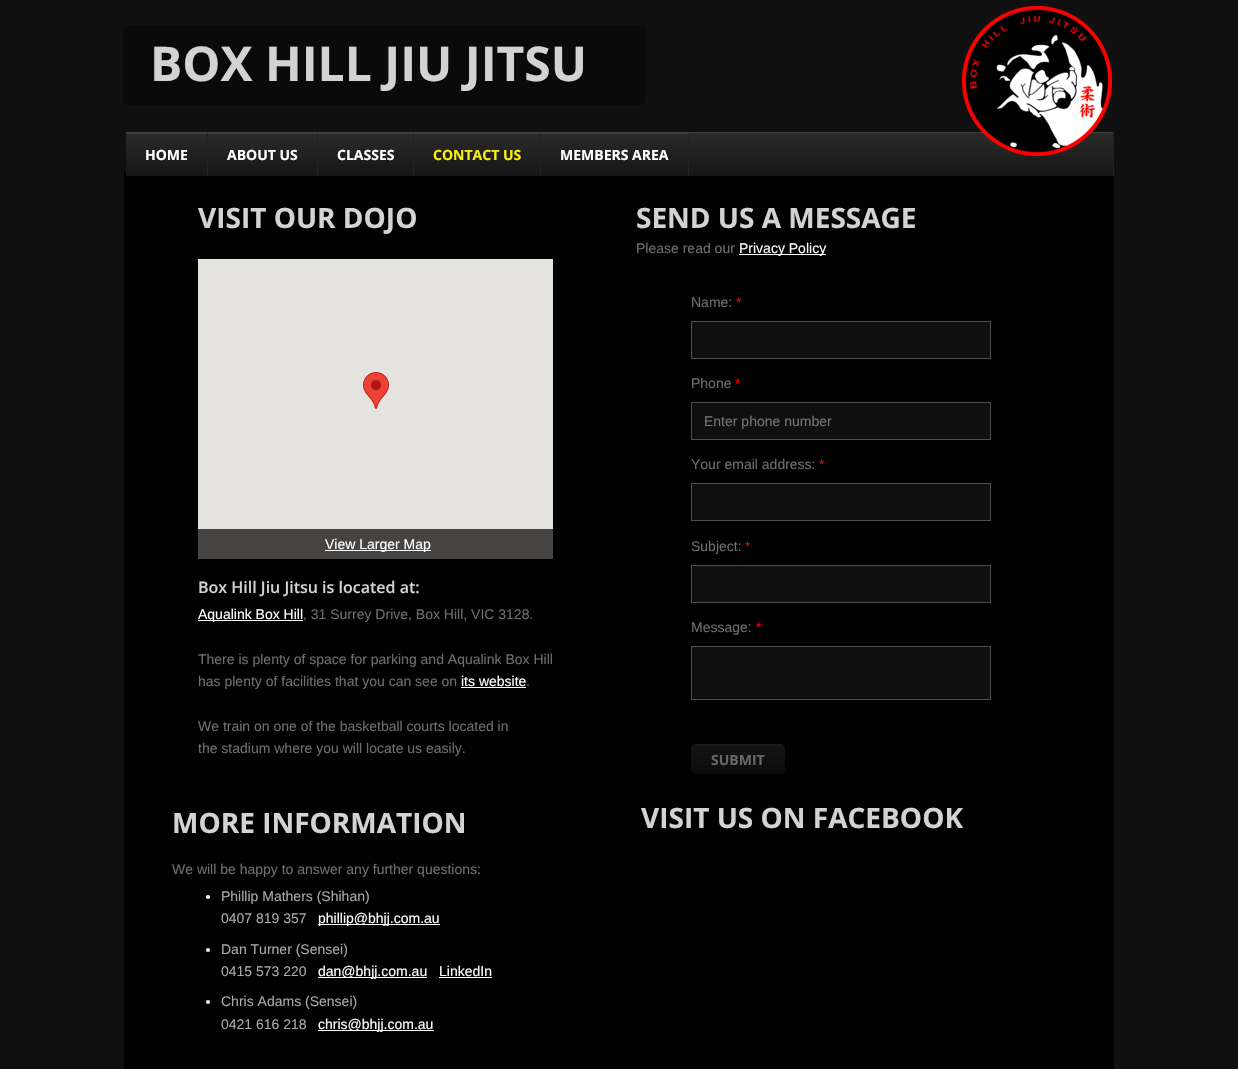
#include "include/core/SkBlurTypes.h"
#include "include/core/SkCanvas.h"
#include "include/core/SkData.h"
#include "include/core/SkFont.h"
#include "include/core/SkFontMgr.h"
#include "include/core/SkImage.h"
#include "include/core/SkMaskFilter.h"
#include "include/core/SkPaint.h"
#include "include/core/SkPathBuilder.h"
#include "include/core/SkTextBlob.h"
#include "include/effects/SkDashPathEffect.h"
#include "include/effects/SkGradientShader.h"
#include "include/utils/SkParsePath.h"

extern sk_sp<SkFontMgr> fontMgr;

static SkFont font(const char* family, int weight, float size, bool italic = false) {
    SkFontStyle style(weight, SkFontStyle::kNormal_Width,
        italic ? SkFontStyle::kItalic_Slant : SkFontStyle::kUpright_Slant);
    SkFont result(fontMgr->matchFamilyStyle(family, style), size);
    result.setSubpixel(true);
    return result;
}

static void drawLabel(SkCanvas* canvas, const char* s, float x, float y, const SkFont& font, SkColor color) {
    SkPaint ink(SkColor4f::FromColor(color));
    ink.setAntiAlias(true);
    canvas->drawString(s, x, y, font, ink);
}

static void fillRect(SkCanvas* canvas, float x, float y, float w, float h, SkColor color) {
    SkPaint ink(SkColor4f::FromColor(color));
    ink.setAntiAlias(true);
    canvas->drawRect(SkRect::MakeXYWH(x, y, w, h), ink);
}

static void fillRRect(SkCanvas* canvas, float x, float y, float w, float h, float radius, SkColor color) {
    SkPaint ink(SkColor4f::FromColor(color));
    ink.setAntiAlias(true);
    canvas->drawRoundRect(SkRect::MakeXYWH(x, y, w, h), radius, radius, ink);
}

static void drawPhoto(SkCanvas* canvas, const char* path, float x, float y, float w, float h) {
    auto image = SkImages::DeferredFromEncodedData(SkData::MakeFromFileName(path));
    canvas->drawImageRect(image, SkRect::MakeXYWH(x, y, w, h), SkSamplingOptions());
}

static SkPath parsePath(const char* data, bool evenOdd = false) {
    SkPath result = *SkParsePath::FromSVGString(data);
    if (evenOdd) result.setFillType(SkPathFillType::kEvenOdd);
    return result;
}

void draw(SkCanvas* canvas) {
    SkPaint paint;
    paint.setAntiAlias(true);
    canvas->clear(0xFF101010);
    fillRect(canvas, 124, 172, 990, 893, 0xFF010101);
    fillRRect(canvas, 123, 25, 523, 80, 5, 0xFF0A0A0A);
    {
        const SkColor colors[] = {0xFF2A2A2A, 0xFF161616};
        const float stops[] = {0.01f, 1};
        const SkPoint ends[] = {{620, 133}, {620, 176}};
        paint.setShader(SkGradientShader::MakeLinear(ends, colors, stops, 2, SkTileMode::kClamp));
        paint.setAlpha(255);
    }
    canvas->drawRect(SkRect::MakeXYWH(126, 133, 987, 43), paint);
    fillRect(canvas, 126, 132, 988, 1, 0xFF3F3F3F);
    drawPhoto(canvas, "assets/img1.png", 962, 6, 150, 150);
    SkFont font1 = font("Open Sans", 700, 48);
    drawLabel(canvas, "BOX HILL JIU JITSU", 150, 81, font1, 0xFFD3D3D3);
    fillRect(canvas, 1113, 132, 1, 45, 0xFF222222);
    fillRect(canvas, 1113, 176, 1, 1, 0xFF000000);
    fillRect(canvas, 126, 133, 563, 1, 0xFF3F3F3F);
    fillRect(canvas, 207, 133, 1, 44, 0xFF222222);
    fillRect(canvas, 207, 176, 1, 1, 0xFF000000);
    SkFont font2 = font("Open Sans", 700, 14);
    drawLabel(canvas, "HOME", 145, 160, font2, 0xFFFFFFFF);
    fillRect(canvas, 317, 133, 1, 44, 0xFF222222);
    fillRect(canvas, 317, 176, 1, 1, 0xFF000000);
    drawLabel(canvas, "ABOUT US", 227, 160, font2, 0xFFFFFFFF);
    fillRect(canvas, 413, 133, 1, 44, 0xFF222222);
    fillRect(canvas, 413, 176, 1, 1, 0xFF000000);
    drawLabel(canvas, "CLASSES", 337, 160, font2, 0xFFFFFFFF);
    fillRect(canvas, 540, 133, 1, 44, 0xFF222222);
    fillRect(canvas, 540, 176, 1, 1, 0xFF000000);
    drawLabel(canvas, "CONTACT US", 433, 160, font2, 0xFFF7EF0F);
    fillRect(canvas, 688, 133, 1, 44, 0xFF222222);
    fillRect(canvas, 688, 176, 1, 1, 0xFF000000);
    drawLabel(canvas, "MEMBERS AREA", 560, 160, font2, 0xFFFFFFFF);
    SkFont font3 = font("Open Sans", 700, 28);
    drawLabel(canvas, "VISIT OUR DOJO", 198, 228, font3, 0xFFD3D3D3);
    drawLabel(canvas, "SEND US A MESSAGE", 636, 228, font3, 0xFFD3D3D3);
    SkFont font4 = font("Liberation Sans", 400, 14);
    drawLabel(canvas, "Please read our", 636, 253, font4, 0xFF6E6E6E);
    fillRect(canvas, 739, 254, 87, 1, 0xFFFFFFFF);
    drawLabel(canvas, "Privacy Policy", 739, 253, font4, 0xFFFFFFFF);
    drawLabel(canvas, "Name:", 691, 307, font4, 0xFF6E6E6E);
    drawLabel(canvas, "*", 736, 307, font4, 0xFFFF0000);
    paint.setShader(nullptr);
    paint.setColor(0xFF0F0F0F);
    canvas->drawRect(SkRect::MakeXYWH(691.5f, 321.5f, 299, 37), paint);
    paint.setStroke(true);
    paint.setStrokeWidth(1);
    paint.setColor(0xFF4E4E4E);
    canvas->drawRect(SkRect::MakeXYWH(691.5f, 321.5f, 299, 37), paint);
    drawLabel(canvas, "Phone", 691, 388, font4, 0xFF6E6E6E);
    drawLabel(canvas, "*", 735, 388, font4, 0xFFFF0000);
    paint.setStroke(false);
    paint.setColor(0xFF0F0F0F);
    canvas->drawRect(SkRect::MakeXYWH(691.5f, 402.5f, 299, 37), paint);
    paint.setStroke(true);
    paint.setColor(0xFF4E4E4E);
    canvas->drawRect(SkRect::MakeXYWH(691.5f, 402.5f, 299, 37), paint);
    drawLabel(canvas, "Enter phone number", 704, 426, font4, 0xFF757575);
    drawLabel(canvas, "Your email address:", 691, 469, font4, 0xFF6E6E6E);
    drawLabel(canvas, "*", 819, 469, font4, 0xFFFF0000);
    paint.setStroke(false);
    paint.setColor(0xFF0F0F0F);
    canvas->drawRect(SkRect::MakeXYWH(691.5f, 483.5f, 299, 37), paint);
    paint.setStroke(true);
    paint.setColor(0xFF4E4E4E);
    canvas->drawRect(SkRect::MakeXYWH(691.5f, 483.5f, 299, 37), paint);
    fillRect(canvas, 198, 259, 355, 270, 0xFFE5E3DF);
    drawPhoto(canvas, "assets/img2.png", 363, 372, 26, 37);
    fillRect(canvas, 198, 529, 355, 30, 0xFF454443);
    fillRect(canvas, 325, 550, 106, 1, 0xFFFFFFFF);
    drawLabel(canvas, "View Larger Map", 325, 549, font4, 0xFFFFFFFF);
    drawLabel(canvas, "Subject:", 691, 551, font4, 0xFF6E6E6E);
    drawLabel(canvas, "*", 745, 551, font4, 0xFFFF0000);
    paint.setStroke(false);
    paint.setColor(0xFF0F0F0F);
    canvas->drawRect(SkRect::MakeXYWH(691.5f, 565.5f, 299, 37), paint);
    paint.setStroke(true);
    paint.setColor(0xFF4E4E4E);
    canvas->drawRect(SkRect::MakeXYWH(691.5f, 565.5f, 299, 37), paint);
    SkFont font5 = font("Open Sans", 600, 16);
    drawLabel(canvas, "Box Hill Jiu Jitsu is located at:", 198, 593, font5, 0xFFD3D3D3);
    fillRect(canvas, 198, 620, 105, 1, 0xFFFFFFFF);
    drawLabel(canvas, "Aqualink Box Hill", 198, 619, font4, 0xFFFFFFFF);
    drawLabel(canvas, ", 31 Surrey Drive, Box Hill, VIC 3128.", 303, 619, font4, 0xFF6E6E6E);
    drawLabel(canvas, "There is plenty of space for parking and Aqualink Box Hill", 198, 664, font4, 0xFF6E6E6E);
    drawLabel(canvas, "has plenty of facilities that you can see on", 198, 686, font4, 0xFF6E6E6E);
    drawLabel(canvas, "its website", 461, 686, font4, 0xFFFFFFFF);
    fillRect(canvas, 461, 687, 65, 1, 0xFFFFFFFF);
    drawLabel(canvas, ".", 526, 686, font4, 0xFF6E6E6E);
    drawLabel(canvas, "We train on one of the basketball courts located in", 198, 731, font4, 0xFF6E6E6E);
    drawLabel(canvas, "the stadium where you will locate us easily.", 198, 753, font4, 0xFF6E6E6E);
    drawLabel(canvas, "Message:", 691, 632, font4, 0xFF6E6E6E);
    drawLabel(canvas, "*", 756, 632, font4, 0xFFFF0000);
    paint.setStroke(false);
    paint.setColor(0xFF0F0F0F);
    canvas->drawRect(SkRect::MakeXYWH(691.5f, 646.5f, 299, 53), paint);
    paint.setStroke(true);
    paint.setColor(0xFF4E4E4E);
    canvas->drawRect(SkRect::MakeXYWH(691.5f, 646.5f, 299, 53), paint);
    canvas->save();
    canvas->clipPath(parsePath("M696 744H780C783 744 785 746 785 749V769C785 772 783 774 780 774H696C693 774 691 772 691 769V749C691 746 693 744 696 744Z"), true);
    paint.setStroke(false);
    {
        const SkColor colors[] = {0xFF141414, 0xFF0C0C0C};
        const float stops[] = {0.01f, 1};
        const SkPoint ends[] = {{738, 716}, {738, 745}};
        paint.setShader(SkGradientShader::MakeLinear(ends, colors, stops, 2, SkTileMode::kClamp));
        paint.setAlpha(255);
    }
    canvas->drawRect(SkRect::MakeXYWH(691, 744, 3, 1), paint);
    {
        const SkColor colors[] = {0xFF141414, 0xFF0C0C0C};
        const float stops[] = {0.01f, 1};
        const SkPoint ends[] = {{738, 745}, {738, 774}};
        paint.setShader(SkGradientShader::MakeLinear(ends, colors, stops, 2, SkTileMode::kClamp));
        paint.setAlpha(255);
    }
    canvas->drawPath(parsePath("M691 745H785V769C785 772 783 774 780 774H696C693 774 691 772 691 769Z"), paint);
    canvas->restore();
    fillRect(canvas, 694, 744, 89, 1, 0xFF1B1B1B);
    drawLabel(canvas, "SUBMIT", 711, 765, font2, 0xFF676767);
    drawLabel(canvas, "MORE INFORMATION", 172, 833, font3, 0xFFD3D3D3);
    drawLabel(canvas, "We will be happy to answer any further questions:", 172, 874, font4, 0xFF6E6E6E);
    paint.setShader(nullptr);
    paint.setColor(0xFFFFFFFF);
    canvas->drawCircle(208, 897, 2, paint);
    drawLabel(canvas, "Phillip Mathers (Shihan)", 221, 901, font4, 0xFFA9A9A9);
    drawLabel(canvas, "0407 819 357", 221, 923, font4, 0xFFA9A9A9);
    fillRect(canvas, 318, 924, 122, 1, 0xFFFFFFFF);
    drawLabel(canvas, "phillip@bhjj.com.au", 318, 923, font4, 0xFFFFFFFF);
    canvas->drawCircle(208, 950, 2, paint);
    drawLabel(canvas, "Dan Turner (Sensei)", 221, 954, font4, 0xFFA9A9A9);
    drawLabel(canvas, "0415 573 220", 221, 976, font4, 0xFFA9A9A9);
    fillRect(canvas, 318, 977, 109, 1, 0xFFFFFFFF);
    drawLabel(canvas, "dan@bhjj.com.au", 318, 976, font4, 0xFFFFFFFF);
    drawLabel(canvas, "LinkedIn", 439, 976, font4, 0xFFFFFFFF);
    fillRect(canvas, 439, 977, 53, 1, 0xFFFFFFFF);
    canvas->drawCircle(208, 1002, 2, paint);
    drawLabel(canvas, "Chris Adams (Sensei)", 221, 1006, font4, 0xFFA9A9A9);
    drawLabel(canvas, "0421 616 218", 221, 1029, font4, 0xFFA9A9A9);
    fillRect(canvas, 318, 1030, 116, 1, 0xFFFFFFFF);
    drawLabel(canvas, "chris@bhjj.com.au", 318, 1029, font4, 0xFFFFFFFF);
    drawLabel(canvas, "VISIT US ON FACEBOOK", 641, 828, font3, 0xFFD3D3D3);
    fillRect(canvas, 124, 1065, 990, 4, 0xFF000000);
}
